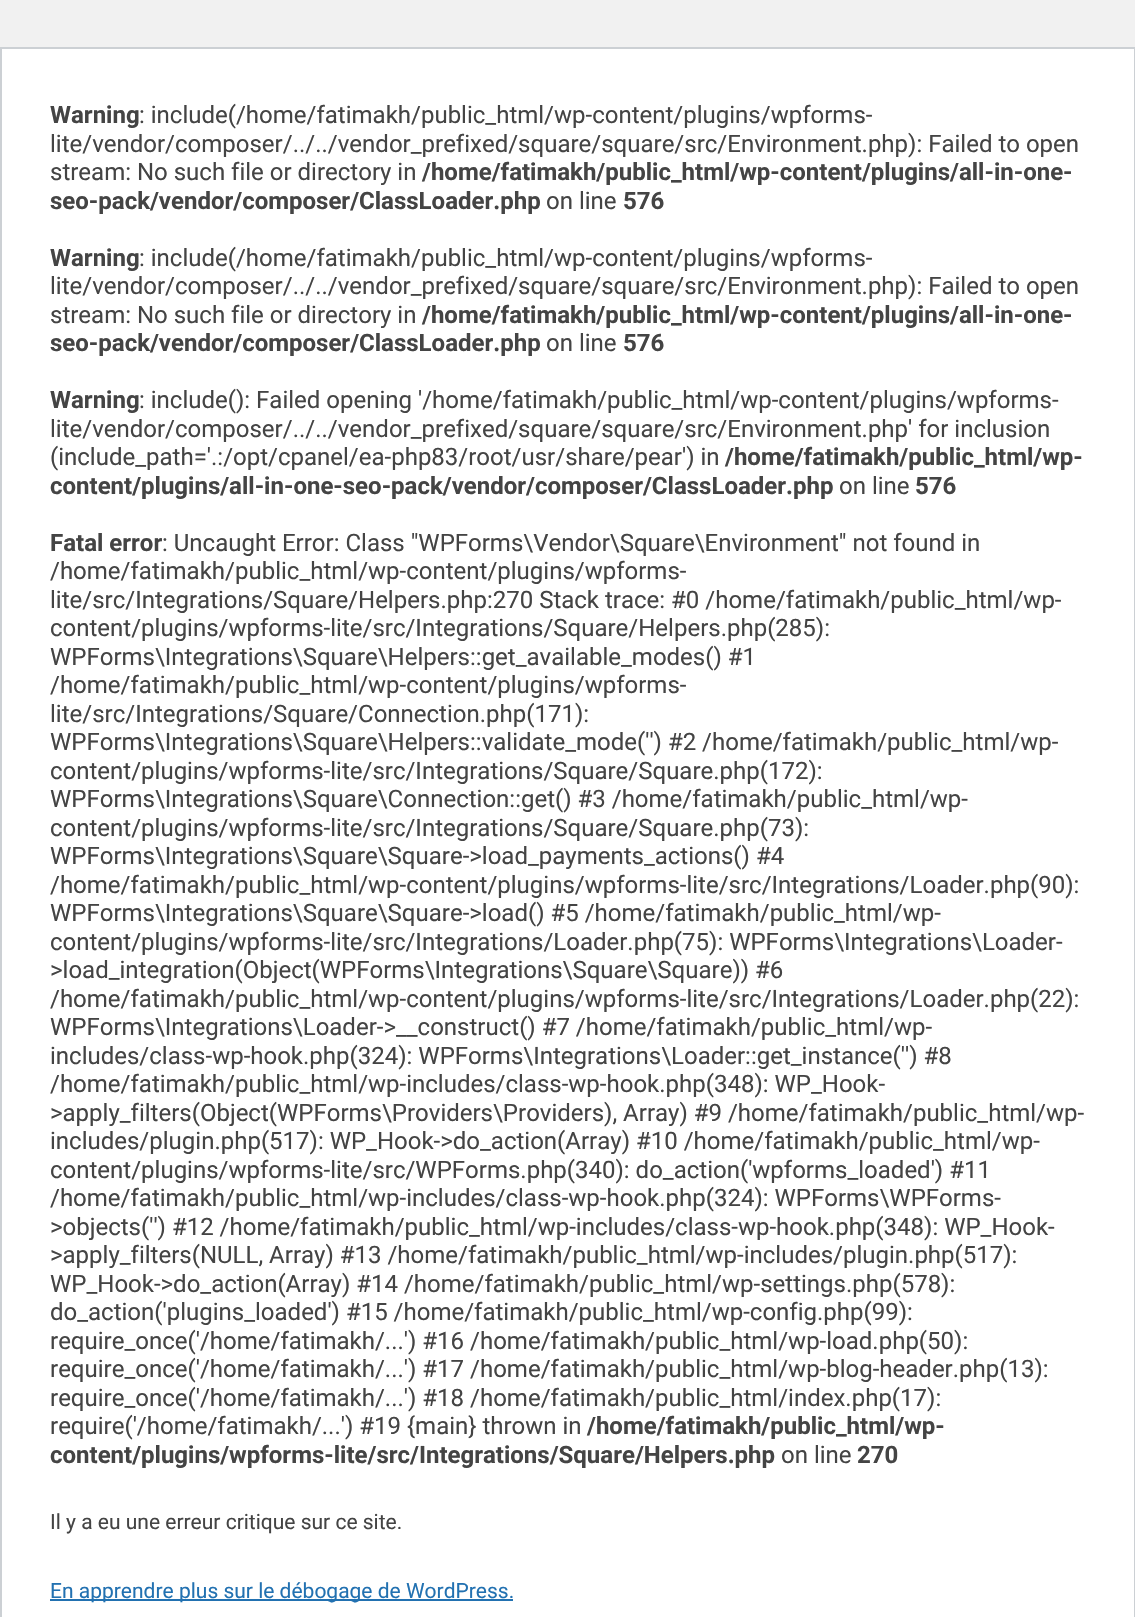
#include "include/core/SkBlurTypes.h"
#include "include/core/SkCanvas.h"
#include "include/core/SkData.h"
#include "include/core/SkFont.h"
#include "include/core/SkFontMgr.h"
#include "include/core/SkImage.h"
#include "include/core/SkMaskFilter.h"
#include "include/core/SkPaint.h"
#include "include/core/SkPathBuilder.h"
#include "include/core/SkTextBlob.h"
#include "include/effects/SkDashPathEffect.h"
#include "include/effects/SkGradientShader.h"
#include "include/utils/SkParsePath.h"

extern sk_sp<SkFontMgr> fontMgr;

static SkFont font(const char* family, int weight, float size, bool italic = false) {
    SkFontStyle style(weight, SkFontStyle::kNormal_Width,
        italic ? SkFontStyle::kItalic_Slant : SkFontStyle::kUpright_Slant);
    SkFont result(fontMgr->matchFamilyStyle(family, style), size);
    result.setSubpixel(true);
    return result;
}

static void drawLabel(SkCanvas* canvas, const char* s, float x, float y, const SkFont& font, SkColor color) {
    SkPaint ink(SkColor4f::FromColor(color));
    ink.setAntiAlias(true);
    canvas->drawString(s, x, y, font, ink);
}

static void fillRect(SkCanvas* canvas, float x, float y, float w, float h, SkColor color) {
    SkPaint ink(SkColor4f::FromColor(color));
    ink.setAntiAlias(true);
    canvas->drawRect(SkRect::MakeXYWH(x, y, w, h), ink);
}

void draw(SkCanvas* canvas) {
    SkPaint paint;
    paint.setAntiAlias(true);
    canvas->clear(0xFFF1F1F1);
    paint.setColor(0xFFFFFFFF);
    canvas->drawRect(SkRect::MakeXYWH(1, 48, 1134, 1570), paint);
    paint.setStroke(true);
    paint.setStrokeWidth(2);
    paint.setColor(0xFFCCD0D4);
    canvas->drawRect(SkRect::MakeXYWH(1, 48, 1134, 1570), paint);
    SkFont font1 = font("Roboto", 700, 24);
    drawLabel(canvas, "Warning", 50, 123, font1, 0xFF444444);
    SkFont font2 = font("Roboto", 400, 24);
    drawLabel(canvas, ": include(/home/fatimakh/public_html/wp-content/plugins/wpforms-", 139, 123, font2, 0xFF444444);
    drawLabel(canvas, "lite/vendor/composer/../../vendor_prefixed/square/square/src/Environment.php): Failed to open", 50, 152, font2, 0xFF444444);
    drawLabel(canvas, "stream: No such file or directory in", 50, 180, font2, 0xFF444444);
    drawLabel(canvas, "/home/fatimakh/public_html/wp-content/plugins/all-in-one-", 422, 180, font1, 0xFF444444);
    drawLabel(canvas, "seo-pack/vendor/composer/ClassLoader.php", 50, 209, font1, 0xFF444444);
    drawLabel(canvas, "on line", 546, 209, font2, 0xFF444444);
    drawLabel(canvas, "576", 623, 209, font1, 0xFF444444);
    drawLabel(canvas, "Warning", 50, 266, font1, 0xFF444444);
    drawLabel(canvas, ": include(/home/fatimakh/public_html/wp-content/plugins/wpforms-", 139, 266, font2, 0xFF444444);
    drawLabel(canvas, "lite/vendor/composer/../../vendor_prefixed/square/square/src/Environment.php): Failed to open", 50, 294, font2, 0xFF444444);
    drawLabel(canvas, "stream: No such file or directory in", 50, 323, font2, 0xFF444444);
    drawLabel(canvas, "/home/fatimakh/public_html/wp-content/plugins/all-in-one-", 422, 323, font1, 0xFF444444);
    drawLabel(canvas, "seo-pack/vendor/composer/ClassLoader.php", 50, 351, font1, 0xFF444444);
    drawLabel(canvas, "on line", 546, 351, font2, 0xFF444444);
    drawLabel(canvas, "576", 623, 351, font1, 0xFF444444);
    drawLabel(canvas, "Warning", 50, 408, font1, 0xFF444444);
    drawLabel(canvas, ": include(): Failed opening '/home/fatimakh/public_html/wp-content/plugins/wpforms-", 139, 408, font2, 0xFF444444);
    drawLabel(canvas, "lite/vendor/composer/../../vendor_prefixed/square/square/src/Environment.php' for inclusion", 50, 437, font2, 0xFF444444);
    drawLabel(canvas, "(include_path='.:/opt/cpanel/ea-php83/root/usr/share/pear') in", 50, 465, font2, 0xFF444444);
    drawLabel(canvas, "/home/fatimakh/public_html/wp-", 725, 465, font1, 0xFF444444);
    drawLabel(canvas, "content/plugins/all-in-one-seo-pack/vendor/composer/ClassLoader.php", 50, 494, font1, 0xFF444444);
    drawLabel(canvas, "on line", 839, 494, font2, 0xFF444444);
    drawLabel(canvas, "576", 915, 494, font1, 0xFF444444);
    drawLabel(canvas, "Fatal error", 50, 551, font1, 0xFF444444);
    drawLabel(canvas, ": Uncaught Error: Class \"WPForms\\Vendor\\Square\\Environment\" not found in", 162, 551, font2, 0xFF444444);
    drawLabel(canvas, "/home/fatimakh/public_html/wp-content/plugins/wpforms-", 50, 579, font2, 0xFF444444);
    drawLabel(canvas, "lite/src/Integrations/Square/Helpers.php:270 Stack trace: #0 /home/fatimakh/public_html/wp-", 50, 608, font2, 0xFF444444);
    drawLabel(canvas, "content/plugins/wpforms-lite/src/Integrations/Square/Helpers.php(285):", 50, 636, font2, 0xFF444444);
    drawLabel(canvas, "WPForms\\Integrations\\Square\\Helpers::get_available_modes() #1", 50, 665, font2, 0xFF444444);
    drawLabel(canvas, "/home/fatimakh/public_html/wp-content/plugins/wpforms-", 50, 693, font2, 0xFF444444);
    drawLabel(canvas, "lite/src/Integrations/Square/Connection.php(171):", 50, 722, font2, 0xFF444444);
    drawLabel(canvas, "WPForms\\Integrations\\Square\\Helpers::validate_mode('') #2 /home/fatimakh/public_html/wp-", 50, 750, font2, 0xFF444444);
    drawLabel(canvas, "content/plugins/wpforms-lite/src/Integrations/Square/Square.php(172):", 50, 779, font2, 0xFF444444);
    drawLabel(canvas, "WPForms\\Integrations\\Square\\Connection::get() #3 /home/fatimakh/public_html/wp-", 50, 807, font2, 0xFF444444);
    drawLabel(canvas, "content/plugins/wpforms-lite/src/Integrations/Square/Square.php(73):", 50, 836, font2, 0xFF444444);
    drawLabel(canvas, "WPForms\\Integrations\\Square\\Square->load_payments_actions() #4", 50, 864, font2, 0xFF444444);
    drawLabel(canvas, "/home/fatimakh/public_html/wp-content/plugins/wpforms-lite/src/Integrations/Loader.php(90):", 50, 893, font2, 0xFF444444);
    drawLabel(canvas, "WPForms\\Integrations\\Square\\Square->load() #5 /home/fatimakh/public_html/wp-", 50, 921, font2, 0xFF444444);
    drawLabel(canvas, "content/plugins/wpforms-lite/src/Integrations/Loader.php(75): WPForms\\Integrations\\Loader-", 50, 950, font2, 0xFF444444);
    drawLabel(canvas, ">load_integration(Object(WPForms\\Integrations\\Square\\Square)) #6", 50, 978, font2, 0xFF444444);
    drawLabel(canvas, "/home/fatimakh/public_html/wp-content/plugins/wpforms-lite/src/Integrations/Loader.php(22):", 50, 1007, font2, 0xFF444444);
    drawLabel(canvas, "WPForms\\Integrations\\Loader->__construct() #7 /home/fatimakh/public_html/wp-", 50, 1035, font2, 0xFF444444);
    drawLabel(canvas, "includes/class-wp-hook.php(324): WPForms\\Integrations\\Loader::get_instance('') #8", 50, 1064, font2, 0xFF444444);
    drawLabel(canvas, "/home/fatimakh/public_html/wp-includes/class-wp-hook.php(348): WP_Hook-", 50, 1092, font2, 0xFF444444);
    drawLabel(canvas, ">apply_filters(Object(WPForms\\Providers\\Providers), Array) #9 /home/fatimakh/public_html/wp-", 50, 1121, font2, 0xFF444444);
    drawLabel(canvas, "includes/plugin.php(517): WP_Hook->do_action(Array) #10 /home/fatimakh/public_html/wp-", 50, 1149, font2, 0xFF444444);
    drawLabel(canvas, "content/plugins/wpforms-lite/src/WPForms.php(340): do_action('wpforms_loaded') #11", 50, 1178, font2, 0xFF444444);
    drawLabel(canvas, "/home/fatimakh/public_html/wp-includes/class-wp-hook.php(324): WPForms\\WPForms-", 50, 1206, font2, 0xFF444444);
    drawLabel(canvas, ">objects('') #12 /home/fatimakh/public_html/wp-includes/class-wp-hook.php(348): WP_Hook-", 50, 1235, font2, 0xFF444444);
    drawLabel(canvas, ">apply_filters(NULL, Array) #13 /home/fatimakh/public_html/wp-includes/plugin.php(517):", 50, 1263, font2, 0xFF444444);
    drawLabel(canvas, "WP_Hook->do_action(Array) #14 /home/fatimakh/public_html/wp-settings.php(578):", 50, 1292, font2, 0xFF444444);
    drawLabel(canvas, "do_action('plugins_loaded') #15 /home/fatimakh/public_html/wp-config.php(99):", 50, 1320, font2, 0xFF444444);
    drawLabel(canvas, "require_once('/home/fatimakh/...') #16 /home/fatimakh/public_html/wp-load.php(50):", 50, 1349, font2, 0xFF444444);
    drawLabel(canvas, "require_once('/home/fatimakh/...') #17 /home/fatimakh/public_html/wp-blog-header.php(13):", 50, 1377, font2, 0xFF444444);
    drawLabel(canvas, "require_once('/home/fatimakh/...') #18 /home/fatimakh/public_html/index.php(17):", 50, 1406, font2, 0xFF444444);
    drawLabel(canvas, "require('/home/fatimakh/...') #19 {main} thrown in", 50, 1434, font2, 0xFF444444);
    drawLabel(canvas, "/home/fatimakh/public_html/wp-", 587, 1434, font1, 0xFF444444);
    drawLabel(canvas, "content/plugins/wpforms-lite/src/Integrations/Square/Helpers.php", 50, 1463, font1, 0xFF444444);
    drawLabel(canvas, "on line", 781, 1463, font2, 0xFF444444);
    drawLabel(canvas, "270", 857, 1463, font1, 0xFF444444);
    SkFont font3 = font("Roboto", 400, 21);
    drawLabel(canvas, "Il y a eu une erreur critique sur ce site.", 50, 1529, font3, 0xFF444444);
    fillRect(canvas, 50, 1599, 463, 2, 0xFF2271B1);
    drawLabel(canvas, "En apprendre plus sur le débogage de WordPress.", 50, 1598, font3, 0xFF2271B1);
}
